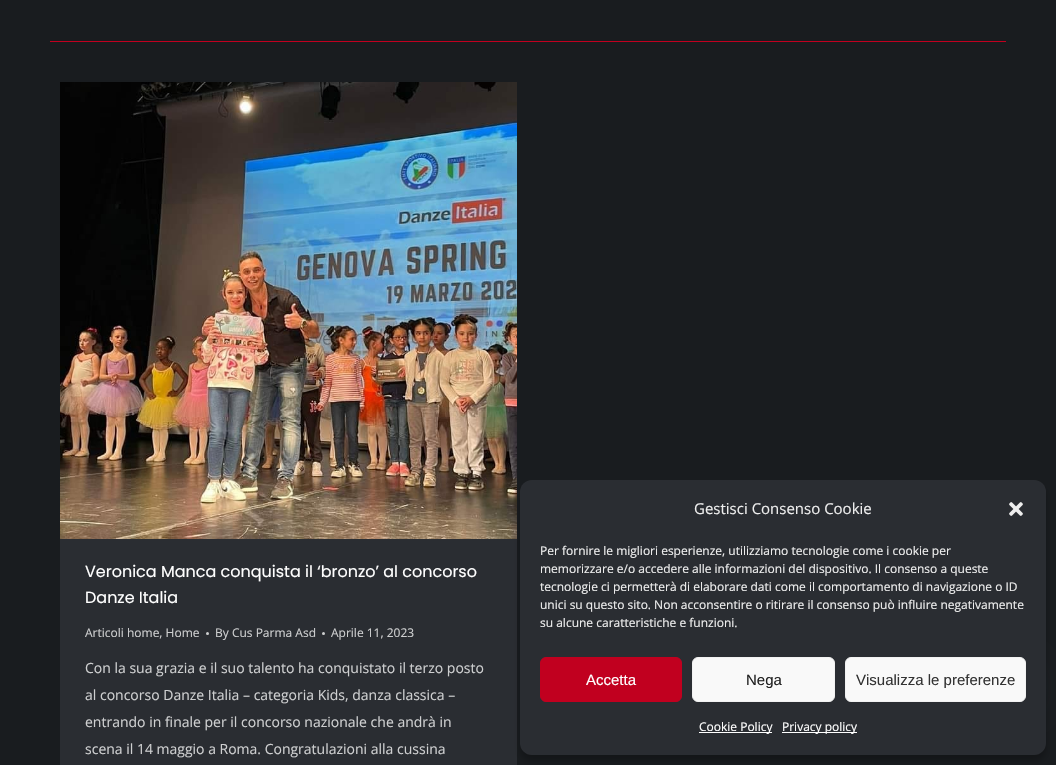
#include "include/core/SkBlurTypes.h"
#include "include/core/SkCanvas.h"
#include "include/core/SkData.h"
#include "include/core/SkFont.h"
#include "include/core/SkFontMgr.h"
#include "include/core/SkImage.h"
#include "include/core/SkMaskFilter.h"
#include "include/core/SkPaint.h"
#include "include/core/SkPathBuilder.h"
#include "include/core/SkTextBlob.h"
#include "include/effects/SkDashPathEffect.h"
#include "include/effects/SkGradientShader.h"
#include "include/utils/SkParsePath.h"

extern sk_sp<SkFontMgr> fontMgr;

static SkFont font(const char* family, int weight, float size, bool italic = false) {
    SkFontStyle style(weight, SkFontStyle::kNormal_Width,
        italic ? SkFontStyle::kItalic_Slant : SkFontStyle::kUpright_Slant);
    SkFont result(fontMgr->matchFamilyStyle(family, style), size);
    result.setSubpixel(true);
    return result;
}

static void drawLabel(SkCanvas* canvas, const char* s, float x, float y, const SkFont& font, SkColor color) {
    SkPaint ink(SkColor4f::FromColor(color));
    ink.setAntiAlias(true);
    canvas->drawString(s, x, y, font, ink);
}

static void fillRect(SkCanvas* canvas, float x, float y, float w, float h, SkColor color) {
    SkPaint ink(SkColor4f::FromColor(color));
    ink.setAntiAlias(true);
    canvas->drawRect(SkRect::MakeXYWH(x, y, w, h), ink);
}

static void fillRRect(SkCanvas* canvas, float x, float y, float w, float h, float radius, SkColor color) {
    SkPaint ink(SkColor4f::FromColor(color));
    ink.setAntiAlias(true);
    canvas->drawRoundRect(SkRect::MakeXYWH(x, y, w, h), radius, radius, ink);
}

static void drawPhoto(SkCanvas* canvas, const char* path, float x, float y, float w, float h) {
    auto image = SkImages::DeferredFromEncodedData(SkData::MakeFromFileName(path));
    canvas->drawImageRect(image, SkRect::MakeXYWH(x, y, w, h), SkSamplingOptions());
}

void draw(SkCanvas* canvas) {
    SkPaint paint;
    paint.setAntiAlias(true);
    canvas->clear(0xFF191C1F);
    fillRect(canvas, 50, 41, 956, 1, 0xFFC1001F);
    fillRect(canvas, 60, 539, 457, 226, 0xFF2A2D32);
    drawPhoto(canvas, "assets/img1.png", 60, 82, 457, 457);
    SkFont font1 = font("Poppins", 400, 16);
    drawLabel(canvas, "Veronica Manca conquista il ‘bronzo’ al concorso", 85, 577, font1, 0xFFFFFFFF);
    drawLabel(canvas, "Danze Italia", 85, 603, font1, 0xFFFFFFFF);
    SkFont font2 = font("Open Sans", 400, 12);
    drawLabel(canvas, "Articoli home, Home", 85, 637, font2, 0xFFCECFD0);
    paint.setColor(0xFFCECFD0);
    canvas->drawCircle(207.5f, 633.5f, 1.5f, paint);
    drawLabel(canvas, "By Cus Parma Asd", 215, 637, font2, 0xFFCECFD0);
    canvas->drawCircle(323.5f, 633.5f, 1.5f, paint);
    drawLabel(canvas, "Aprile 11, 2023", 331, 637, font2, 0xFFCECFD0);
    SkFont font3 = font("Open Sans", 400, 14);
    drawLabel(canvas, "Con la sua grazia e il suo talento ha conquistato il terzo posto", 85, 673, font3, 0xFFCECFD0);
    drawLabel(canvas, "al concorso Danze Italia – categoria Kids, danza classica –", 85, 700, font3, 0xFFCECFD0);
    drawLabel(canvas, "entrando in finale per il concorso nazionale che andrà in", 85, 727, font3, 0xFFCECFD0);
    drawLabel(canvas, "scena il 14 maggio a Roma. Congratulazioni alla cussina", 85, 754, font3, 0xFFCECFD0);
    paint.setColor(0x3B000000);
    paint.setMaskFilter(SkMaskFilter::MakeBlur(kNormal_SkBlurStyle, 3));
    canvas->drawRoundRect(SkRect::MakeXYWH(520, 486, 526, 275), 12, 12, paint);
    paint.setMaskFilter(nullptr);
    paint.setColor(0x2949687E);
    paint.setMaskFilter(SkMaskFilter::MakeBlur(kNormal_SkBlurStyle, 12));
    canvas->drawRoundRect(SkRect::MakeXYWH(984, 660, 54, 54), 27, 27, paint);
    paint.setMaskFilter(nullptr);
    fillRRect(canvas, 520, 480, 526, 275, 12, 0xFF2A2D32);
    SkFont font4 = font("Open Sans", 400, 15);
    drawLabel(canvas, "Gestisci Consenso Cookie", 694, 514, font4, 0xFFEEEEEE);
    drawPhoto(canvas, "assets/img2.png", 1009, 502, 14, 14);
    drawLabel(canvas, "Per fornire le migliori esperienze, utilizziamo tecnologie come i cookie per", 540, 555, font2, 0xFFEEEEEE);
    drawLabel(canvas, "memorizzare e/o accedere alle informazioni del dispositivo. Il consenso a queste", 540, 573, font2, 0xFFEEEEEE);
    drawLabel(canvas, "tecnologie ci permetterà di elaborare dati come il comportamento di navigazione o ID", 540, 591, font2, 0xFFEEEEEE);
    drawLabel(canvas, "unici su questo sito. Non acconsentire o ritirare il consenso può influire negativamente", 540, 609, font2, 0xFFEEEEEE);
    drawLabel(canvas, "su alcune caratteristiche e funzioni.", 540, 627, font2, 0xFFEEEEEE);
    paint.setColor(0xFFC1001F);
    canvas->drawRoundRect(SkRect::MakeXYWH(540.5f, 657.5f, 141, 44), 5.5f, 5.5f, paint);
    paint.setStroke(true);
    paint.setStrokeWidth(1);
    canvas->drawRoundRect(SkRect::MakeXYWH(540.5f, 657.5f, 141, 44), 5.5f, 5.5f, paint);
    SkFont font5 = font("Liberation Sans", 400, 15);
    drawLabel(canvas, "Accetta", 586, 685, font5, 0xFFFFFFFF);
    paint.setStroke(false);
    paint.setColor(0xFFF9F9F9);
    canvas->drawRoundRect(SkRect::MakeXYWH(692.5f, 657.5f, 142, 44), 5.5f, 5.5f, paint);
    paint.setStroke(true);
    paint.setColor(0xFFF2F2F2);
    canvas->drawRoundRect(SkRect::MakeXYWH(692.5f, 657.5f, 142, 44), 5.5f, 5.5f, paint);
    drawLabel(canvas, "Nega", 746, 685, font5, 0xFF222222);
    paint.setStroke(false);
    paint.setColor(0xFFF9F9F9);
    canvas->drawRoundRect(SkRect::MakeXYWH(845.5f, 657.5f, 180, 44), 5.5f, 5.5f, paint);
    paint.setStroke(true);
    paint.setColor(0xFFF2F2F2);
    canvas->drawRoundRect(SkRect::MakeXYWH(845.5f, 657.5f, 180, 44), 5.5f, 5.5f, paint);
    drawLabel(canvas, "Visualizza le preferenze", 856, 685, font5, 0xFF333333);
    fillRect(canvas, 699, 732, 73, 1, 0xFFFFFFFF);
    drawLabel(canvas, "Cookie Policy", 699, 731, font2, 0xFFFFFFFF);
    fillRect(canvas, 782, 732, 75, 1, 0xFFFFFFFF);
    drawLabel(canvas, "Privacy policy", 782, 731, font2, 0xFFFFFFFF);
}
